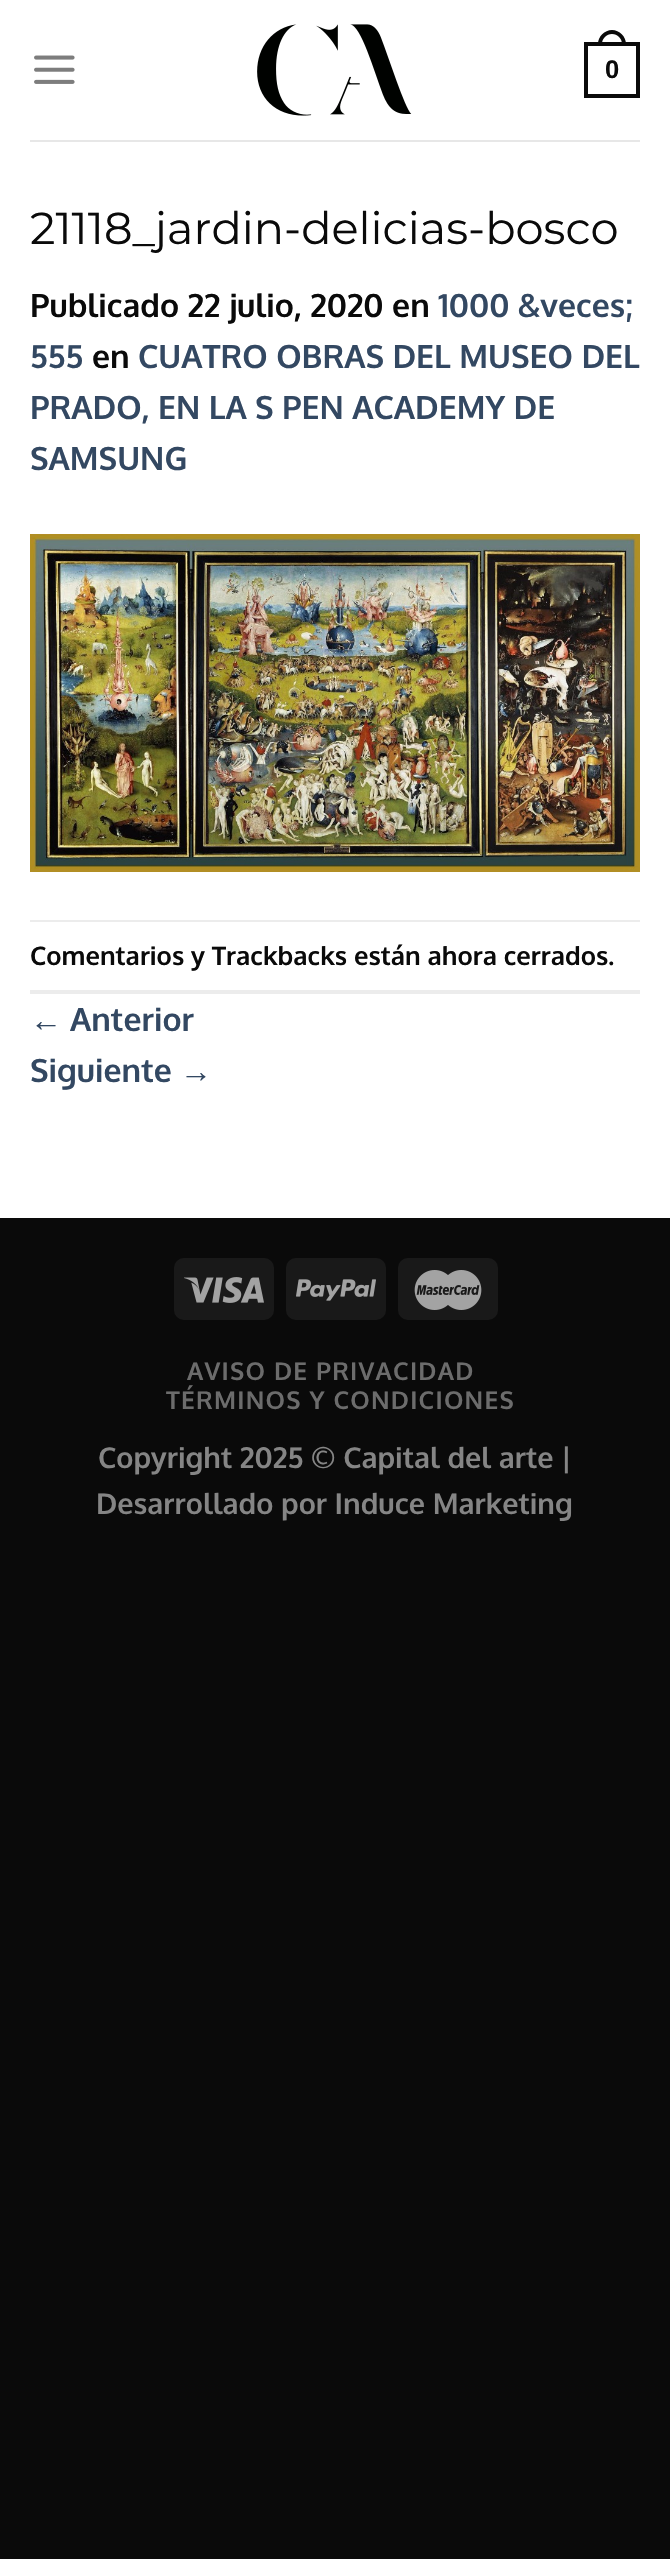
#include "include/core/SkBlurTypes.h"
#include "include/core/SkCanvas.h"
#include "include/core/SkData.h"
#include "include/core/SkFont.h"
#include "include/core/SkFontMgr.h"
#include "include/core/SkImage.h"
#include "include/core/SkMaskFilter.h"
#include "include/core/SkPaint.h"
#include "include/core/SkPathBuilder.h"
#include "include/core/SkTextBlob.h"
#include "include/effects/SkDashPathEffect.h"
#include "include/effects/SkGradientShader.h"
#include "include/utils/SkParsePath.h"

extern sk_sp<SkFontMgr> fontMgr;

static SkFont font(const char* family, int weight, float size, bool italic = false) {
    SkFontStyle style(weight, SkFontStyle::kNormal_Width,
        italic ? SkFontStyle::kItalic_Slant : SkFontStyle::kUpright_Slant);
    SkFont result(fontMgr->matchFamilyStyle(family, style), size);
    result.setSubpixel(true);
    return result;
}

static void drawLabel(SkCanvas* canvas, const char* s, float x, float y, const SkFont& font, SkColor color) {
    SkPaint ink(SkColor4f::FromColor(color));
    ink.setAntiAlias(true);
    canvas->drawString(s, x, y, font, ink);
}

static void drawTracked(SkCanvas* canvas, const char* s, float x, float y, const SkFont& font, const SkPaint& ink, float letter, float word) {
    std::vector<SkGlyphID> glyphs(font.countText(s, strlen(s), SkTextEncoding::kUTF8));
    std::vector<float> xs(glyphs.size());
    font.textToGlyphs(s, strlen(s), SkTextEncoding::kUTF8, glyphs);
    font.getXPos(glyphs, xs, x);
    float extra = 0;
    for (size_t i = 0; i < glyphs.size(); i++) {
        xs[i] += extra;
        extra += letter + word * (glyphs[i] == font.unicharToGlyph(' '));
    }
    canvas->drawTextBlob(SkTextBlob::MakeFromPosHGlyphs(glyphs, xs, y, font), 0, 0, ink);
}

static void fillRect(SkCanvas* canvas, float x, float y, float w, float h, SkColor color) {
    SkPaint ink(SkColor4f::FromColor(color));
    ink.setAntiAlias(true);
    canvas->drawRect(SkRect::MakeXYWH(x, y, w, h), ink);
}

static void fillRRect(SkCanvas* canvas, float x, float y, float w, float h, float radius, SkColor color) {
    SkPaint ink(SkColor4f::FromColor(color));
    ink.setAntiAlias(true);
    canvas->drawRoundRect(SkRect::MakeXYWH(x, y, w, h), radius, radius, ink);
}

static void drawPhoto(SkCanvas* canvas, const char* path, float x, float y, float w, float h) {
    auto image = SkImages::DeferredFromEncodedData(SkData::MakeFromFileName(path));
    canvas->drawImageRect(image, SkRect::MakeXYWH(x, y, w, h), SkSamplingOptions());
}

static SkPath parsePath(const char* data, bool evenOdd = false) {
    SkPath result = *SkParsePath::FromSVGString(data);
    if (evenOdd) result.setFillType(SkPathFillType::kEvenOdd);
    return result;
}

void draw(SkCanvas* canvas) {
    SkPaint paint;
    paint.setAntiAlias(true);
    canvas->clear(0xFF0A0A0A);
    fillRect(canvas, 0, 0, 670, 1218, 0xFFFFFFFF);
    drawPhoto(canvas, "assets/img1.png", 34, 55, 41, 29);
    drawPhoto(canvas, "assets/img2.png", 257, 24, 155, 92);
    paint.setStroke(true);
    paint.setStrokeWidth(4);
    paint.setColor(0xFF0A0A0A);
    canvas->drawRect(SkRect::MakeXYWH(586, 44, 52, 52), paint);
    paint.setStroke(false);
    canvas->drawPath(parsePath("M612 30C619.5 30 626 36.5 626 44V46H598V44C598 36.5 604.5 30 612 30ZM612 34C617.5 34 622 38.5 622 44V46H602V44C602 38.5 606.5 34 612 34Z", true), paint);
    SkFont font1 = font("Liberation Sans", 700, 25.6f);
    drawLabel(canvas, "0", 605, 78, font1, 0xFF0A0A0A);
    fillRect(canvas, 30, 140, 610, 2, 0xFFE7E7E7);
    SkFont font2 = font("Montserrat", 400, 44.75f);
    drawLabel(canvas, "21118_jardin-delicias-bosco", 30, 244, font2, 0xFF0A0A0A);
    SkFont font3 = font("Oxygen", 700, 32);
    drawLabel(canvas, "Publicado 22 julio, 2020 en", 30, 317, font3, 0xFF0A0A0A);
    drawLabel(canvas, "1000 &veces;", 438, 317, font3, 0xFF334862);
    drawLabel(canvas, "555", 30, 368, font3, 0xFF334862);
    drawLabel(canvas, "en", 92, 368, font3, 0xFF0A0A0A);
    drawLabel(canvas, "CUATRO OBRAS DEL MUSEO DEL", 138, 368, font3, 0xFF334862);
    drawLabel(canvas, "PRADO, EN LA S PEN ACADEMY DE", 30, 419, font3, 0xFF334862);
    drawLabel(canvas, "SAMSUNG", 30, 470, font3, 0xFF334862);
    drawPhoto(canvas, "assets/img3.png", 30, 534, 610, 338);
    fillRect(canvas, 30, 920, 610, 2, 0xFFECECEC);
    fillRect(canvas, 30, 990, 610, 4, 0xFFECECEC);
    SkFont font4 = font("Oxygen", 700, 25.6f);
    drawLabel(canvas, "Comentarios y Trackbacks están ahora cerrados.", 30, 965, font4, 0xFF0A0A0A);
    SkFont font5 = font("Liberation Sans", 400, 32);
    drawLabel(canvas, "←", 30, 1031, font5, 0xFF334862);
    drawLabel(canvas, "Anterior", 70, 1031, font3, 0xFF334862);
    drawLabel(canvas, "Siguiente", 30, 1082, font3, 0xFF334862);
    drawLabel(canvas, "→", 180, 1082, font5, 0xFF334862);
    fillRRect(canvas, 174, 1258, 100, 62, 10, 0xFF191919);
    drawPhoto(canvas, "assets/img4.png", 184, 1277, 80, 26);
    fillRRect(canvas, 286, 1258, 100, 62, 10, 0xFF191919);
    drawPhoto(canvas, "assets/img5.png", 296, 1279, 80, 22);
    fillRRect(canvas, 398, 1258, 100, 62, 10, 0xFF191919);
    drawPhoto(canvas, "assets/img6.png", 414, 1270, 68, 40);
    SkFont font6 = font("Oxygen", 700, 24.5f);
    paint.setColor(0xFF6C6C6C);
    drawTracked(canvas, "AVISO DE PRIVACIDAD", 187, 1380, font6, paint, 1.25f, 0);
    drawTracked(canvas, "TÉRMINOS Y CONDICIONES", 166, 1409, font6, paint, 1.25f, 0);
    SkFont font7 = font("Oxygen", 700, 28.75f);
    drawLabel(canvas, "Copyright 2025 © Capital del arte |", 98, 1468, font7, 0xFF858585);
    drawLabel(canvas, "Desarrollado por Induce Marketing", 96, 1514, font7, 0xFF858585);
}
